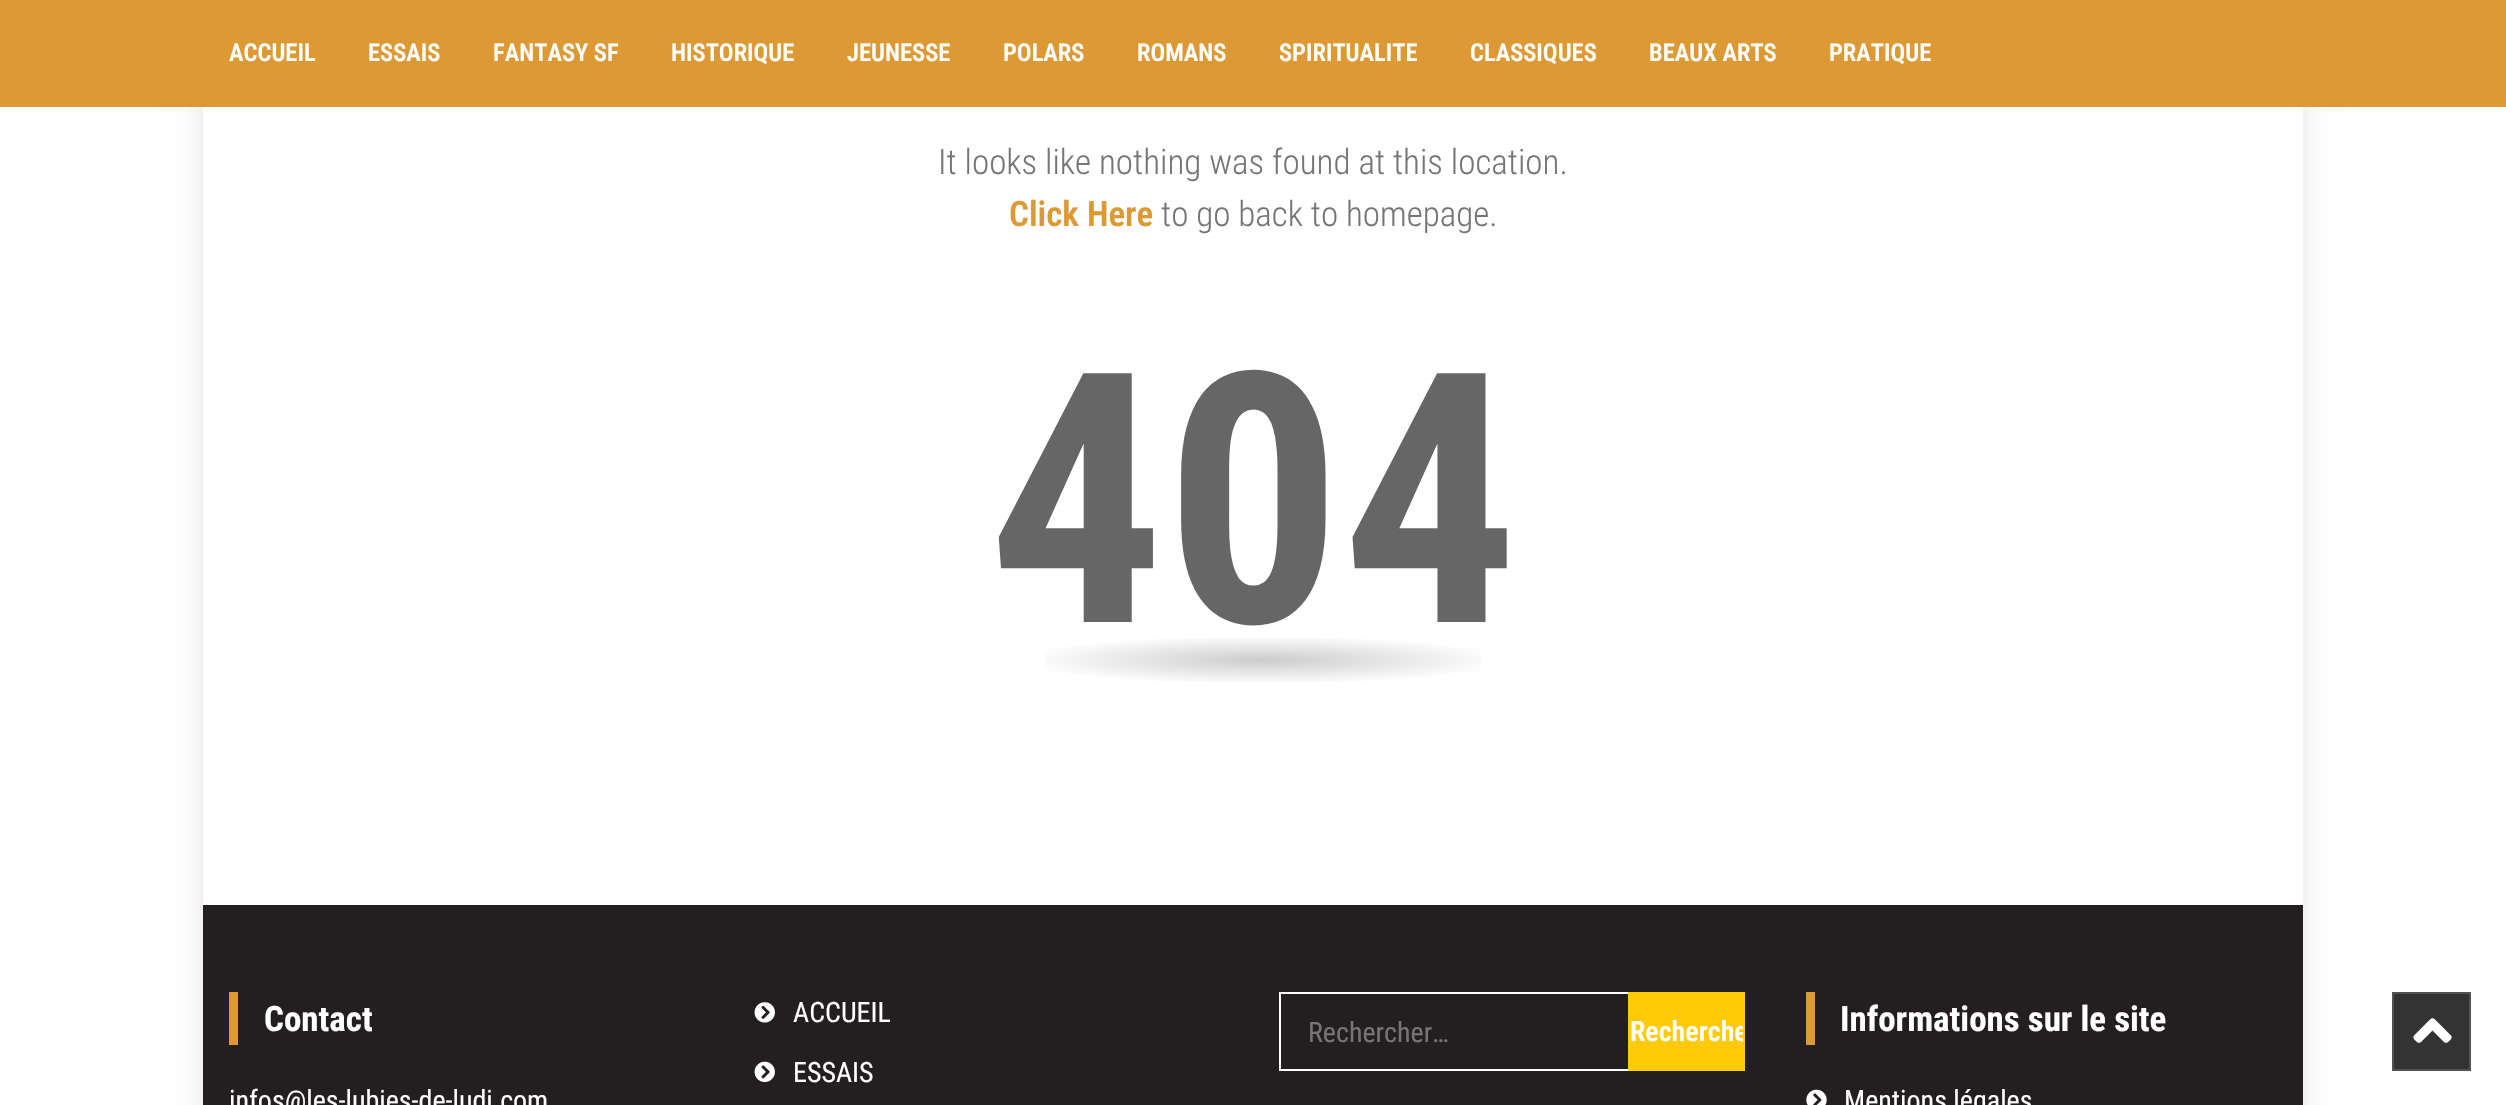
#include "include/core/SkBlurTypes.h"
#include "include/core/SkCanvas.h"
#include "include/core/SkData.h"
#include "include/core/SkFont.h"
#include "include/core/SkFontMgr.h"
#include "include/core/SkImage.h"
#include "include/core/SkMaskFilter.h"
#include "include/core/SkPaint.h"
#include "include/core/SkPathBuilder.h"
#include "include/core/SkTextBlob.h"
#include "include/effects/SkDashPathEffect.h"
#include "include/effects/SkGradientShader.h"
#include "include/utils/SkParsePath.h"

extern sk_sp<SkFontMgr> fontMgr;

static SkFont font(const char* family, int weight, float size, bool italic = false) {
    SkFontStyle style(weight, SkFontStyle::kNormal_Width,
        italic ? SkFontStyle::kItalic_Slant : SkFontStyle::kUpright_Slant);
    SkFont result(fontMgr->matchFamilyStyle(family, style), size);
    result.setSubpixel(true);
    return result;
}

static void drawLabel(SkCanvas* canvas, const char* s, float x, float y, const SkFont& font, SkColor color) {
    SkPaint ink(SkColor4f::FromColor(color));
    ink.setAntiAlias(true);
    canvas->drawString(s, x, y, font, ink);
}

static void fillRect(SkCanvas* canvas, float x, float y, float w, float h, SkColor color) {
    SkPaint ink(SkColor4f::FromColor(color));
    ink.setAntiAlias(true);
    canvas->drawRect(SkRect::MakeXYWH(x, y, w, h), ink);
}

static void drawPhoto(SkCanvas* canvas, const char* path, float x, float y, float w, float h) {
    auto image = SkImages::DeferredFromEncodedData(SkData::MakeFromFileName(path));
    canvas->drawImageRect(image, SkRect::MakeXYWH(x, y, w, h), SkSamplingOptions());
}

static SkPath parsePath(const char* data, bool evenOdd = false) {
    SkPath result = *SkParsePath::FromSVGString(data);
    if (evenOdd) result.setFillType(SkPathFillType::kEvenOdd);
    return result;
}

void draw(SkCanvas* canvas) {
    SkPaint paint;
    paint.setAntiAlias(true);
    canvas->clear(0xFFFFFFFF);
    canvas->save();
    canvas->clipPath(parsePath("M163 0H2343V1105H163ZM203-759H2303V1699H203Z", true), true);
    paint.setColor(0x1A000000);
    paint.setMaskFilter(SkMaskFilter::MakeBlur(kNormal_SkBlurStyle, 13));
    canvas->drawRect(SkRect::MakeXYWH(203, -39, 2100, 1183), paint);
    paint.setMaskFilter(nullptr);
    canvas->restore();
    fillRect(canvas, 0, 0, 2506, 107, 0xFFDD9933);
    SkFont font1 = font("Roboto Condensed", 600, 24.5f);
    drawLabel(canvas, "ACCUEIL", 229, 61, font1, 0xFFFFFFFF);
    drawLabel(canvas, "ESSAIS", 368, 61, font1, 0xFFFFFFFF);
    drawLabel(canvas, "FANTASY SF", 493, 61, font1, 0xFFFFFFFF);
    drawLabel(canvas, "HISTORIQUE", 671, 61, font1, 0xFFFFFFFF);
    drawLabel(canvas, "JEUNESSE", 847, 61, font1, 0xFFFFFFFF);
    drawLabel(canvas, "POLARS", 1003, 61, font1, 0xFFFFFFFF);
    drawLabel(canvas, "ROMANS", 1137, 61, font1, 0xFFFFFFFF);
    drawLabel(canvas, "SPIRITUALITE", 1279, 61, font1, 0xFFFFFFFF);
    drawLabel(canvas, "CLASSIQUES", 1470, 61, font1, 0xFFFFFFFF);
    drawLabel(canvas, "BEAUX ARTS", 1649, 61, font1, 0xFFFFFFFF);
    drawLabel(canvas, "PRATIQUE", 1829, 61, font1, 0xFFFFFFFF);
    SkFont font2 = font("Roboto Condensed", 300, 35);
    drawLabel(canvas, "It looks like nothing was found at this location.", 938, 174, font2, 0xFF757575);
    SkFont font3 = font("Roboto Condensed", 600, 35);
    drawLabel(canvas, "Click Here", 1009, 226, font3, 0xFFDD9933);
    drawLabel(canvas, "to go back to homepage.", 1161, 226, font2, 0xFF757575);
    SkFont font4 = font("Roboto Condensed", 700, 350);
    drawLabel(canvas, "404", 988, 622, font4, 0xFF666666);
    {
        const SkColor colors[] = {0x33000000, 0x00000000};
        const float stops[] = {0, 0.5f};
        SkMatrix m = SkMatrix::Translate(1263, 660).preScale(489, 49);
        paint.setShader(SkGradientShader::MakeRadial({0, 0}, 1, colors, stops, 2, SkTileMode::kClamp, 0, &m));
        paint.setAlpha(255);
    }
    canvas->drawRect(SkRect::MakeXYWH(1045, 638, 436, 44), paint);
    fillRect(canvas, 203, 905, 2100, 200, 0xFF231F20);
    fillRect(canvas, 229, 992, 9, 53, 0xFFDD9933);
    SkFont font5 = font("Roboto Condensed", 700, 35);
    drawLabel(canvas, "Contact", 264, 1031, font5, 0xFFFFFFFF);
    SkFont font6 = font("Roboto Condensed", 400, 28);
    drawLabel(canvas, "infos@les-lubies-de-ludi.com", 229, 1110, font6, 0xFFFFFFFF);
    drawPhoto(canvas, "assets/img1.png", 754, 1002, 21, 21);
    drawLabel(canvas, "ACCUEIL", 793, 1022, font6, 0xFFFFFFFF);
    drawPhoto(canvas, "assets/img2.png", 754, 1061, 21, 21);
    drawLabel(canvas, "ESSAIS", 793, 1082, font6, 0xFFFFFFFF);
    fillRect(canvas, 1279, 992, 349, 2, 0xFFFFFFFF);
    fillRect(canvas, 1279, 1069, 349, 2, 0xFFFFFFFF);
    fillRect(canvas, 1279, 992, 2, 79, 0xFFFFFFFF);
    drawLabel(canvas, "Rechercher…", 1308, 1042, font6, 0xFF757575);
    fillRect(canvas, 1628, 992, 117, 79, 0xFFFFCB08);
    canvas->save();
    canvas->clipRect(SkRect::MakeXYWH(1629, 994, 114, 75));
    SkFont font7 = font("Roboto Condensed", 600, 28);
    drawLabel(canvas, "Recherche", 1630, 1041, font7, 0xFFFFFFFF);
    canvas->restore();
    fillRect(canvas, 1806, 992, 9, 53, 0xFFDD9933);
    drawLabel(canvas, "Informations sur le site", 1840, 1031, font5, 0xFFFFFFFF);
    drawPhoto(canvas, "assets/img3.png", 1806, 1089, 21, 16);
    drawLabel(canvas, "Mentions légales", 1844, 1110, font6, 0xFFFFFFFF);
    paint.setShader(nullptr);
    paint.setColor(0xFF333333);
    canvas->drawRect(SkRect::MakeXYWH(2393, 993, 77, 77), paint);
    paint.setStroke(true);
    paint.setStrokeWidth(2);
    paint.setColor(0xFF525252);
    canvas->drawRect(SkRect::MakeXYWH(2393, 993, 77, 77), paint);
    drawPhoto(canvas, "assets/img4.png", 2413, 1018, 39, 25);
}
